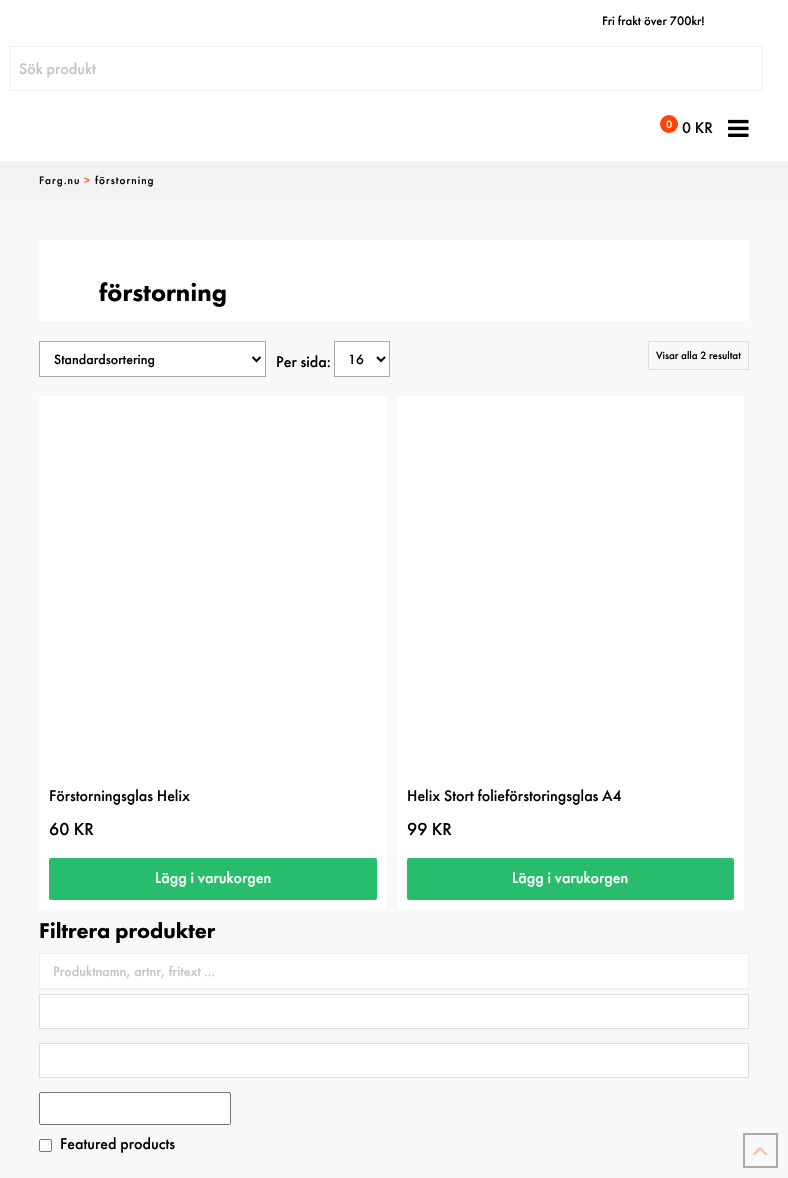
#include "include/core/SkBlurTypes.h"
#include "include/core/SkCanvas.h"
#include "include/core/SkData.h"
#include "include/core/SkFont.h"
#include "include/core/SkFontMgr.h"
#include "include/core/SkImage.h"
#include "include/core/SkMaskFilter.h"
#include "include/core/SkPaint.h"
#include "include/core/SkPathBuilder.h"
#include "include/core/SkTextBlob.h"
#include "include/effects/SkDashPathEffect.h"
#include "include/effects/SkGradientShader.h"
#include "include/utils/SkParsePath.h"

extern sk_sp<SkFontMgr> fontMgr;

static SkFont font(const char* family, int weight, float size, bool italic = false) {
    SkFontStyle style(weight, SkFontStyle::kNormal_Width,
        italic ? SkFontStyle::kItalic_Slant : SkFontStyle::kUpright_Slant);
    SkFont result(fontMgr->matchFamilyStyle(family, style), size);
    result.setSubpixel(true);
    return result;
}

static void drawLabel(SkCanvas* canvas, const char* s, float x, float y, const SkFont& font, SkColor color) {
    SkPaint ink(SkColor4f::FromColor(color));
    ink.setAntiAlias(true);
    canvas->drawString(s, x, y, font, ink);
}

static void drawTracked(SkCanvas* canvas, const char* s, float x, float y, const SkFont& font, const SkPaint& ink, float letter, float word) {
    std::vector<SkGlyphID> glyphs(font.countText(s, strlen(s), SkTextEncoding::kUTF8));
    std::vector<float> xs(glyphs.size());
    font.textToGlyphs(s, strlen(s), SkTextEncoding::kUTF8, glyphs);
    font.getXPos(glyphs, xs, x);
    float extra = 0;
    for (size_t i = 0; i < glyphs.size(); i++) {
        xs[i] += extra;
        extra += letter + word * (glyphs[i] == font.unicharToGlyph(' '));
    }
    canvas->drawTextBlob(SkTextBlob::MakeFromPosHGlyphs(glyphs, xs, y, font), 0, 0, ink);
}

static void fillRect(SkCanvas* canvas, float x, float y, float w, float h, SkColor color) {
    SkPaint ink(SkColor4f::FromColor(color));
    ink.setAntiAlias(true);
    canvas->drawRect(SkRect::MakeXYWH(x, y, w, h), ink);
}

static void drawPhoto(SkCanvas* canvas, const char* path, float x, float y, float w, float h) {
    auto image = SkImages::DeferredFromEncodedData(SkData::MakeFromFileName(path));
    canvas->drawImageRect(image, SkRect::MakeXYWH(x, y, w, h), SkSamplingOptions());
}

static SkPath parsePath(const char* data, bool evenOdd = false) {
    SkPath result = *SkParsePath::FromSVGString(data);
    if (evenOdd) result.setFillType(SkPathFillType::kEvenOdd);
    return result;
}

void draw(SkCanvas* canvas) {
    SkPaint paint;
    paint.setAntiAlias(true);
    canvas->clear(0xFFF7F8F8);
    fillRect(canvas, 0, 0, 788, 161, 0xFFFFFFFF);
    SkFont font1 = font("Futura PT", 500, 12.75f);
    drawLabel(canvas, "Fri frakt över 700kr!", 602, 25, font1, 0xFF000000);
    paint.setStroke(true);
    paint.setStrokeWidth(1);
    paint.setColor(0xFFEEEEEE);
    canvas->drawRect(SkRect::MakeXYWH(10.5f, 46.5f, 752, 44), paint);
    SkFont font2 = font("Futura PT", 500, 16);
    drawLabel(canvas, "Sök produkt", 19, 74, font2, 0xFFC5C5C5);
    paint.setStroke(false);
    paint.setColor(0xFFFF4500);
    canvas->drawCircle(669, 124, 9, paint);
    SkFont font3 = font("Futura PT", 500, 11);
    drawLabel(canvas, "0", 666, 128, font3, 0xFFFFFFFF);
    drawLabel(canvas, "0 KR", 682, 133, font2, 0xFF000000);
    drawPhoto(canvas, "assets/img1.png", 728, 119, 21, 18);
    fillRect(canvas, 0, 161, 788, 39, 0xFFF1F2F2);
    SkFont font4 = font("Futura PT", 500, 11.25f);
    paint.setColor(0xFF000000);
    drawTracked(canvas, "Farg.nu", 39, 184, font4, paint, 1, 0);
    paint.setColor(0xFFFF4500);
    drawTracked(canvas, ">", 84, 184, font4, paint, 1, 0);
    paint.setColor(0xFF000000);
    drawTracked(canvas, "förstorning", 95, 184, font4, paint, 1, 0);
    fillRect(canvas, 39, 240, 710, 81, 0xFFFFFFFF);
    SkFont font5 = font("Futura PT", 900, 25.5f);
    drawLabel(canvas, "förstorning", 99, 301, font5, 0xFF000000);
    paint.setColor(0xFFFFFFFF);
    canvas->drawRect(SkRect::MakeXYWH(39.5f, 341.5f, 226, 35), paint);
    paint.setStroke(true);
    paint.setColor(0xFFAAAAAA);
    canvas->drawRect(SkRect::MakeXYWH(39.5f, 341.5f, 226, 35), paint);
    paint.setStrokeWidth(2);
    paint.setColor(0xFF000000);
    canvas->drawPath(parsePath("M252.5 357L256.5 361L260.5 357"), paint);
    SkFont font6 = font("Futura PT", 500, 14);
    drawLabel(canvas, "Standardsortering", 54, 364, font6, 0xFF000000);
    drawLabel(canvas, "Per sida:", 276, 367, font2, 0xFF000000);
    paint.setStroke(false);
    paint.setColor(0xFFFFFFFF);
    canvas->drawRect(SkRect::MakeXYWH(334.5f, 341.5f, 55, 35), paint);
    paint.setStroke(true);
    paint.setStrokeWidth(1);
    paint.setColor(0xFFAAAAAA);
    canvas->drawRect(SkRect::MakeXYWH(334.5f, 341.5f, 55, 35), paint);
    paint.setStrokeWidth(2);
    paint.setColor(0xFF000000);
    canvas->drawPath(parsePath("M377 357L381 361L385 357"), paint);
    drawLabel(canvas, "16", 348, 364, font6, 0xFF000000);
    paint.setStrokeWidth(1);
    paint.setColor(0xFFDEDFDF);
    canvas->drawRect(SkRect::MakeXYWH(648.5f, 341.5f, 100, 28), paint);
    drawLabel(canvas, "Visar alla 2 resultat", 656, 359, font3, 0xFF000000);
    fillRect(canvas, 39, 396, 348, 514, 0xFFFFFFFF);
    drawLabel(canvas, "Förstorningsglas Helix", 49, 801, font2, 0xFF000000);
    SkFont font7 = font("Futura PT", 500, 18);
    drawLabel(canvas, "60 KR", 49, 835, font7, 0xFF000000);
    paint.setStroke(false);
    paint.setColor(0xFF28BD6D);
    canvas->drawRoundRect(SkRect::MakeXYWH(50, 859, 326, 40), 1, 1, paint);
    paint.setStroke(true);
    paint.setStrokeWidth(2);
    canvas->drawRoundRect(SkRect::MakeXYWH(50, 859, 326, 40), 1, 1, paint);
    drawLabel(canvas, "Lägg i varukorgen", 155, 883, font2, 0xFFFFFFFF);
    fillRect(canvas, 397, 396, 347, 514, 0xFFFFFFFF);
    drawLabel(canvas, "Helix Stort folieförstoringsglas A4", 407, 801, font2, 0xFF000000);
    drawLabel(canvas, "99 KR", 407, 835, font7, 0xFF000000);
    paint.setStroke(false);
    canvas->drawRoundRect(SkRect::MakeXYWH(408, 859, 325, 40), 1, 1, paint);
    paint.setStroke(true);
    canvas->drawRoundRect(SkRect::MakeXYWH(408, 859, 325, 40), 1, 1, paint);
    drawLabel(canvas, "Lägg i varukorgen", 512, 883, font2, 0xFFFFFFFF);
    SkFont font8 = font("Futura PT", 900, 22);
    drawLabel(canvas, "Filtrera produkter", 39, 938, font8, 0xFF000000);
    paint.setStroke(false);
    paint.setColor(0xFFFFFFFF);
    canvas->drawRect(SkRect::MakeXYWH(39.5f, 953.5f, 709, 35), paint);
    paint.setStroke(true);
    paint.setStrokeWidth(1);
    paint.setColor(0xFFEEEEEE);
    canvas->drawRect(SkRect::MakeXYWH(39.5f, 953.5f, 709, 35), paint);
    drawLabel(canvas, "Produktnamn, artnr, fritext …", 53, 976, font6, 0xFFC5C5C5);
    paint.setStroke(false);
    paint.setColor(0xFFFFFFFF);
    canvas->drawRect(SkRect::MakeXYWH(39.5f, 994.5f, 709, 34), paint);
    paint.setStroke(true);
    paint.setColor(0xFFDDDDDD);
    canvas->drawRect(SkRect::MakeXYWH(39.5f, 994.5f, 709, 34), paint);
    paint.setStroke(false);
    paint.setColor(0xFFFFFFFF);
    canvas->drawRect(SkRect::MakeXYWH(39.5f, 1043.5f, 709, 34), paint);
    paint.setStroke(true);
    paint.setColor(0xFFDDDDDD);
    canvas->drawRect(SkRect::MakeXYWH(39.5f, 1043.5f, 709, 34), paint);
    paint.setStroke(false);
    paint.setColor(0xFFFFFFFF);
    canvas->drawRoundRect(SkRect::MakeXYWH(39.5f, 1092.5f, 191, 32), 1.5f, 1.5f, paint);
    paint.setStroke(true);
    paint.setColor(0xFF767676);
    canvas->drawRoundRect(SkRect::MakeXYWH(39.5f, 1092.5f, 191, 32), 1.5f, 1.5f, paint);
    paint.setStroke(false);
    paint.setColor(0xFFFFFFFF);
    canvas->drawRoundRect(SkRect::MakeXYWH(39.5f, 1139.5f, 12, 12), 1.5f, 1.5f, paint);
    paint.setStroke(true);
    paint.setColor(0xFF767676);
    canvas->drawRoundRect(SkRect::MakeXYWH(39.5f, 1139.5f, 12, 12), 1.5f, 1.5f, paint);
    drawLabel(canvas, "Featured products", 60, 1149, font2, 0xFF000000);
    paint.setStrokeWidth(2);
    paint.setColor(0xFFA9AAAA);
    canvas->drawRect(SkRect::MakeXYWH(744, 1134, 33, 33), paint);
    drawPhoto(canvas, "assets/img2.png", 753, 1147, 14, 9);
}
